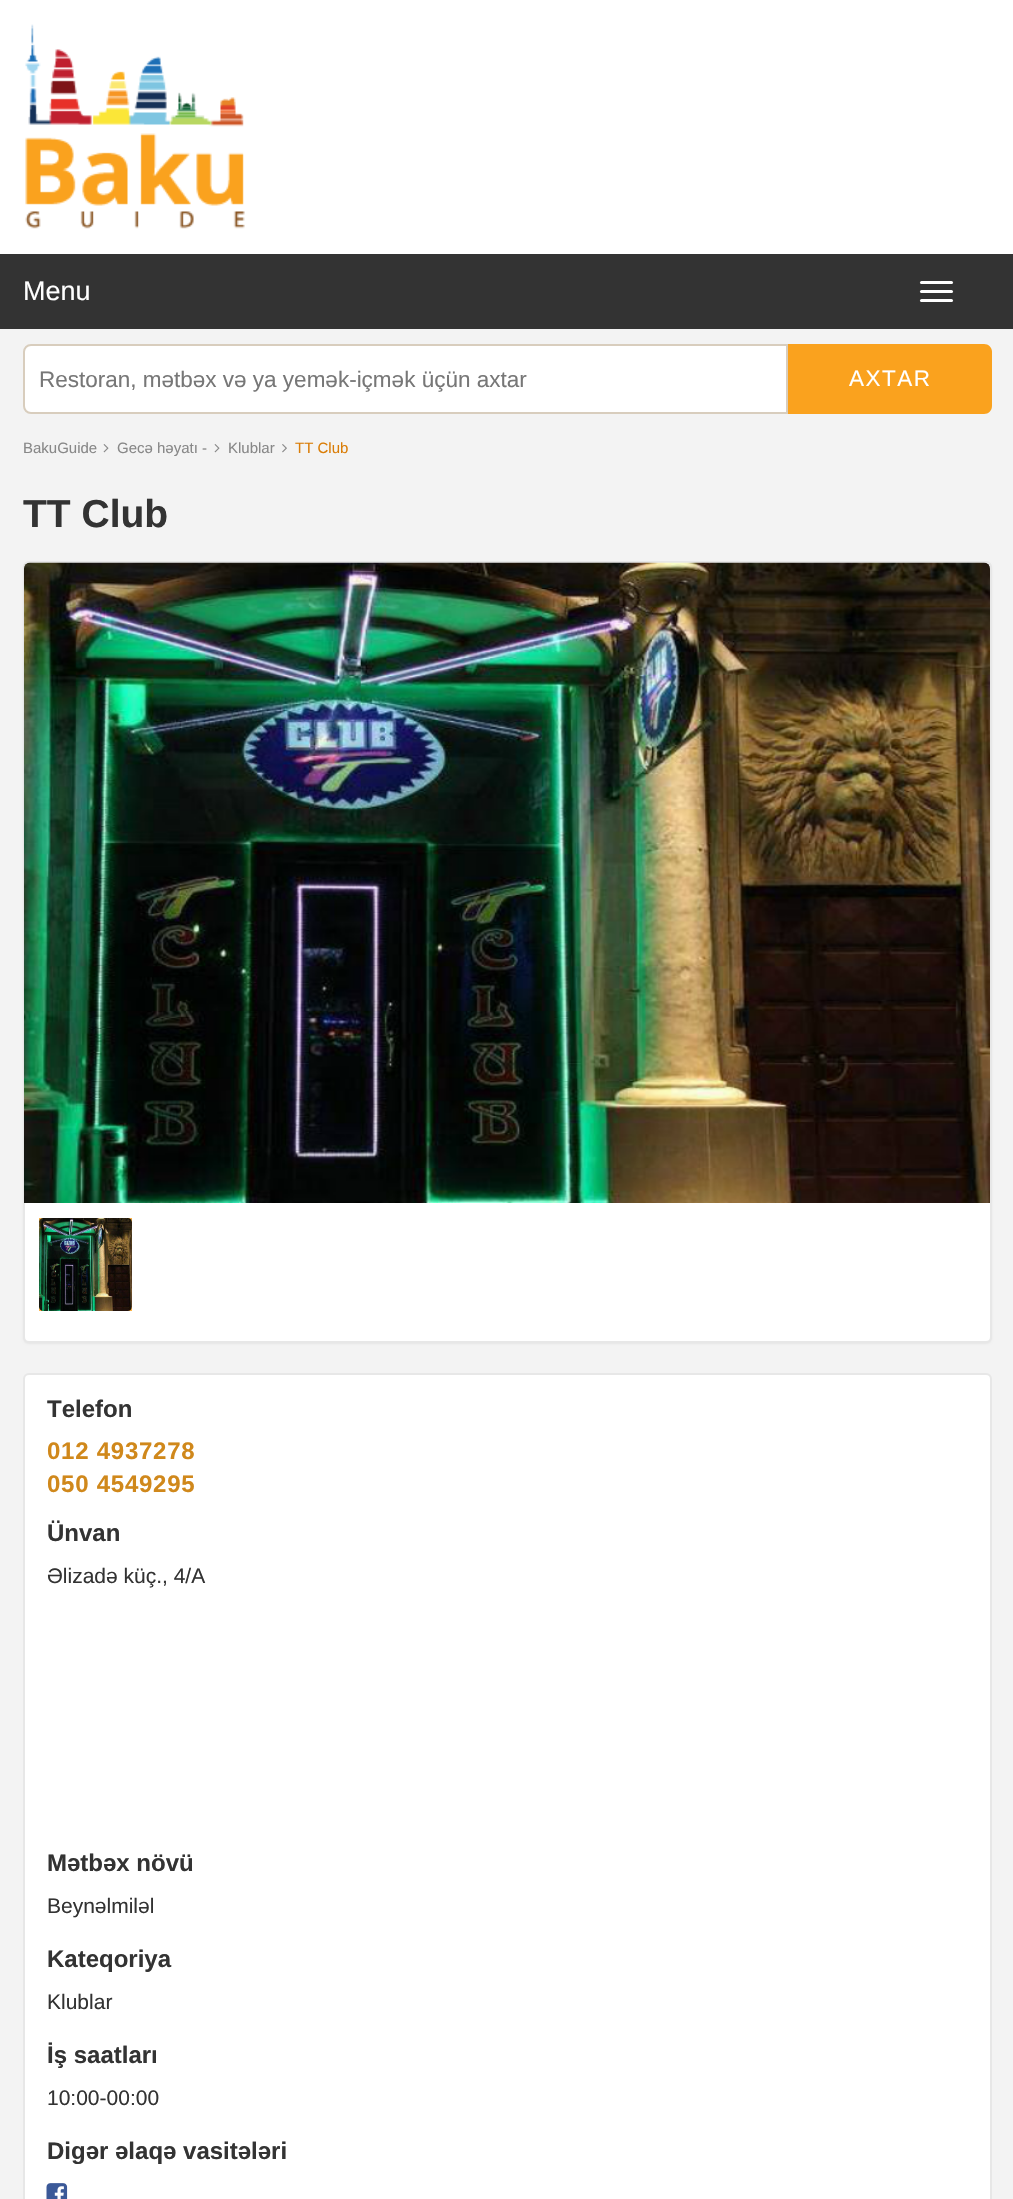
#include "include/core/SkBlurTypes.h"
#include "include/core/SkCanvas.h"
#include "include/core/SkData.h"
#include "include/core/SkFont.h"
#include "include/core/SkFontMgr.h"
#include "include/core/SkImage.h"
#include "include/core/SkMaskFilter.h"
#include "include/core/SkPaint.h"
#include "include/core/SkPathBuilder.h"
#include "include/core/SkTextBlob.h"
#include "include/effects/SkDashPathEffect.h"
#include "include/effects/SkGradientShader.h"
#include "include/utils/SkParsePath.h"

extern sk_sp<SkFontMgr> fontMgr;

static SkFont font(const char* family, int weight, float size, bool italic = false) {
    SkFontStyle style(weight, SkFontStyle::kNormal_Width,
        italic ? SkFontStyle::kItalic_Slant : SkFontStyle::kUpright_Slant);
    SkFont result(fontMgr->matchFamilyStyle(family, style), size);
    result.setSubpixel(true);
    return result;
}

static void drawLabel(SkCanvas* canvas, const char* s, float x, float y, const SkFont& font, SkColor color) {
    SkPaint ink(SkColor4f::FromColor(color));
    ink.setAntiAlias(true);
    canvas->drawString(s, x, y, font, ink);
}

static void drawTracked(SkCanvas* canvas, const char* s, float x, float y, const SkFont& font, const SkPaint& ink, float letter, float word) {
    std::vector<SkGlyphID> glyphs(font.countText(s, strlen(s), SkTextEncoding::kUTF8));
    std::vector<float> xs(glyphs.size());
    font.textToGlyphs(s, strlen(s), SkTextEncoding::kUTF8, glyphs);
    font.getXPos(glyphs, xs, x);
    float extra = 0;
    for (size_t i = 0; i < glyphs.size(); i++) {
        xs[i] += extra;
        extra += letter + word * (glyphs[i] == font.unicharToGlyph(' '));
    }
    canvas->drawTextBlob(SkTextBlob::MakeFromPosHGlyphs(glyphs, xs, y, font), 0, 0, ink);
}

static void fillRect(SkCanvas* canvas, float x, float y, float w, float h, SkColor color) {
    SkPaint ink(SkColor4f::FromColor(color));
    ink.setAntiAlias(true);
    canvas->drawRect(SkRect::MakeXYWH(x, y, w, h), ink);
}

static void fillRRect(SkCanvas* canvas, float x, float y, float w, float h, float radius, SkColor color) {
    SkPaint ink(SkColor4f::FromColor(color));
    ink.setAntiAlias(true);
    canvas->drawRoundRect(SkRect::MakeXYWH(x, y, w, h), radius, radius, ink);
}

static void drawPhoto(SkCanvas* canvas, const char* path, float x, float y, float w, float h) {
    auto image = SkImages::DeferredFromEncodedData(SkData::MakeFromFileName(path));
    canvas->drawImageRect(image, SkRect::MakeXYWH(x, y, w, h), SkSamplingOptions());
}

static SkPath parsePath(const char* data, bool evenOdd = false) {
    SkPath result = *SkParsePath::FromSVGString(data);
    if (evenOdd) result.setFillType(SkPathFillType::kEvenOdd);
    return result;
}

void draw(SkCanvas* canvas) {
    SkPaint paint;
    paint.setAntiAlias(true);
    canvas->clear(0xFFF3F3F3);
    fillRect(canvas, 0, 0, 1013, 254, 0xFFFFFFFF);
    drawPhoto(canvas, "assets/img1.png", 25, 24, 220, 205);
    fillRect(canvas, 0, 254, 1013, 75, 0xFF333333);
    SkFont font1 = font("Liberation Sans", 400, 27);
    drawLabel(canvas, "Menu", 23, 300, font1, 0xFFFFFFFF);
    fillRRect(canvas, 920, 281, 33, 3, 1.5f, 0xFFFFFFFF);
    fillRRect(canvas, 920, 290, 33, 3, 1.5f, 0xFFFFFFFF);
    fillRRect(canvas, 920, 299, 33, 3, 1.5f, 0xFFFFFFFF);
    paint.setColor(0xFFFAA21E);
    canvas->drawPath(parsePath("M786 344H984C988.5 344 992 347.5 992 352V406C992 410.5 988.5 414 984 414H786Z"), paint);
    paint.setColor(0xFFFFFFFF);
    canvas->drawPath(parsePath("M31 345H787V413H31C27 413 24 410 24 406V352C24 348 27 345 31 345Z"), paint);
    paint.setStroke(true);
    paint.setStrokeWidth(2);
    paint.setColor(0xFFD8CDBD);
    canvas->drawPath(parsePath("M31 345H787V413H31C27 413 24 410 24 406V352C24 348 27 345 31 345Z"), paint);
    SkFont font2 = font("Liberation Sans", 400, 22.5f);
    drawLabel(canvas, "Restoran, mətbəx və ya yemək-içmək üçün axtar", 39, 387, font2, 0xFF777777);
    paint.setStroke(false);
    paint.setColor(0xFFFFFFFF);
    drawTracked(canvas, "AXTAR", 849, 386, font2, paint, 1.5f, 0);
    SkFont font3 = font("Liberation Sans", 400, 15);
    drawLabel(canvas, "BakuGuide", 23, 453, font3, 0xFF888888);
    drawPhoto(canvas, "assets/img2.png", 103, 444, 6, 9);
    drawLabel(canvas, "Gecə həyatı -", 117, 453, font3, 0xFF888888);
    drawPhoto(canvas, "assets/img2.png", 214, 444, 6, 9);
    drawLabel(canvas, "Klublar", 228, 453, font3, 0xFF888888);
    drawPhoto(canvas, "assets/img3.png", 282, 444, 5, 9);
    drawLabel(canvas, "TT Club", 295, 453, font3, 0xFFDA7D07);
    SkFont font4 = font("Liberation Sans", 700, 39);
    drawLabel(canvas, "TT Club", 23, 527, font4, 0xFF333333);
    paint.setColor(0x0D000000);
    paint.setMaskFilter(SkMaskFilter::MakeBlur(kNormal_SkBlurStyle, 1));
    canvas->drawRoundRect(SkRect::MakeXYWH(23, 563, 969, 781), 6, 6, paint);
    paint.setMaskFilter(nullptr);
    paint.setColor(0xFFFFFFFF);
    canvas->drawRoundRect(SkRect::MakeXYWH(24, 562, 967, 780), 5, 5, paint);
    paint.setStroke(true);
    paint.setColor(0xFFE7E7E7);
    canvas->drawRoundRect(SkRect::MakeXYWH(24, 562, 967, 780), 5, 5, paint);
    drawPhoto(canvas, "assets/img4.png", 24, 562, 966, 641);
    fillRect(canvas, 39, 1218, 93, 93, 0xFFFBB54B);
    drawPhoto(canvas, "assets/img5.png", 39, 1218, 93, 93);
    paint.setStroke(false);
    paint.setColor(0xFFFFFFFF);
    canvas->drawRoundRect(SkRect::MakeXYWH(24, 1374, 967, 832), 5, 5, paint);
    paint.setStroke(true);
    paint.setColor(0xFFE7E7E7);
    canvas->drawRoundRect(SkRect::MakeXYWH(24, 1374, 967, 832), 5, 5, paint);
    SkFont font5 = font("Liberation Sans", 700, 24);
    drawLabel(canvas, "Telefon", 47, 1417, font5, 0xFF333333);
    paint.setStroke(false);
    paint.setColor(0xFFD0881B);
    drawTracked(canvas, "012 4937278", 47, 1459, font5, paint, 0.75f, 0);
    drawTracked(canvas, "050 4549295", 47, 1492, font5, paint, 0.75f, 0);
    drawLabel(canvas, "Ünvan", 47, 1541, font5, 0xFF333333);
    SkFont font6 = font("Liberation Sans", 400, 21);
    drawLabel(canvas, "Əlizadə küç., 4/A", 47, 1583, font6, 0xFF333333);
    drawLabel(canvas, "Mətbəx növü", 47, 1871, font5, 0xFF333333);
    drawLabel(canvas, "Beynəlmiləl", 47, 1913, font6, 0xFF333333);
    drawLabel(canvas, "Kateqoriya", 47, 1967, font5, 0xFF333333);
    drawLabel(canvas, "Klublar", 47, 2009, font6, 0xFF333333);
    drawLabel(canvas, "İş saatları", 47, 2063, font5, 0xFF333333);
    drawLabel(canvas, "10:00-00:00", 47, 2105, font6, 0xFF333333);
    drawLabel(canvas, "Digər əlaqə vasitələri", 47, 2159, font5, 0xFF333333);
    drawPhoto(canvas, "assets/img6.png", 46, 2183, 22, 16);
}
